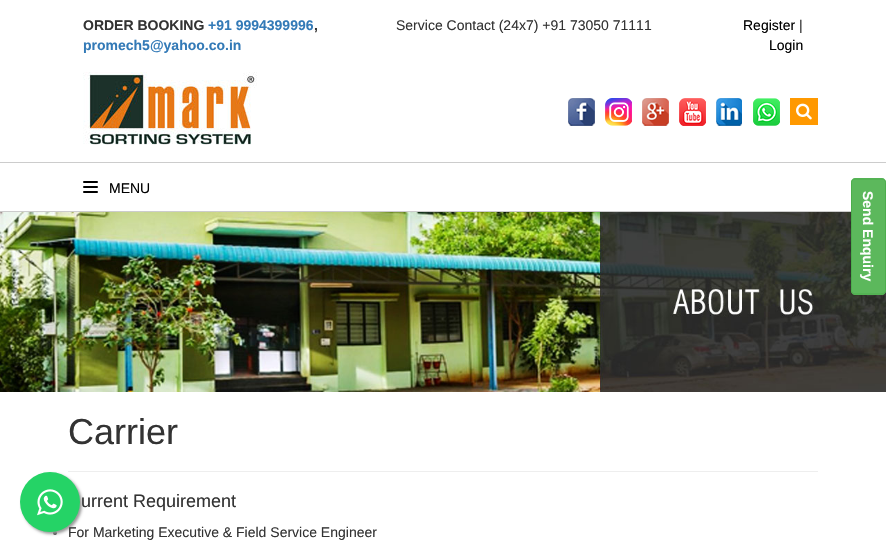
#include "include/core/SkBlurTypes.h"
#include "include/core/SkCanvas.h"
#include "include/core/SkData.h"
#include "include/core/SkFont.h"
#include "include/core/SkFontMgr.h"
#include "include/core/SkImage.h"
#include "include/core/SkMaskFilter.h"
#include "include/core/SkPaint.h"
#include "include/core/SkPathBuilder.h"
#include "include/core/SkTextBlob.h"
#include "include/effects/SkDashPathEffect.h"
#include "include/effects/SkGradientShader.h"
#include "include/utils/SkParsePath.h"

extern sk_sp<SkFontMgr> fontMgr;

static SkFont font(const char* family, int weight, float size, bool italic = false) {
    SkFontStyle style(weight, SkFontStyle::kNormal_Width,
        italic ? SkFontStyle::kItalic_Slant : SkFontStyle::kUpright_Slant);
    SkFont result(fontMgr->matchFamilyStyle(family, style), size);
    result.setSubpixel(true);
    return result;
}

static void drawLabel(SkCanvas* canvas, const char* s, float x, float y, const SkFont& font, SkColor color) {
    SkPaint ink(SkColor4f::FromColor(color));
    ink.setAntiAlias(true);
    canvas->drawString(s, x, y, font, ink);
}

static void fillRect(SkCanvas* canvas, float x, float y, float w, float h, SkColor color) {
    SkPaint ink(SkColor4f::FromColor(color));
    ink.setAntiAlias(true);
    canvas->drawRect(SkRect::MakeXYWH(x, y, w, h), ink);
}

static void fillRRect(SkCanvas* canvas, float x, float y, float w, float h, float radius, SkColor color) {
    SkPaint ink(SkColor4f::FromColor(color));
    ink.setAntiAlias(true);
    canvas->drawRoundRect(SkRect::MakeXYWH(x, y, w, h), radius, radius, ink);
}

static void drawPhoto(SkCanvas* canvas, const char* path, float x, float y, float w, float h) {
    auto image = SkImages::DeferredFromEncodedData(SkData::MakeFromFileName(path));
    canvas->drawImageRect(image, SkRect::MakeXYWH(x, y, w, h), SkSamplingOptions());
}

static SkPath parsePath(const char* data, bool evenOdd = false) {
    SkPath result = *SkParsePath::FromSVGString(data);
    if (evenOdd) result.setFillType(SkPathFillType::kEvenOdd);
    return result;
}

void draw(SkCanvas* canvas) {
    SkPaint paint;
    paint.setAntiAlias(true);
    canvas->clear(0xFFFFFFFF);
    SkFont font1 = font("Liberation Sans", 700, 14);
    drawLabel(canvas, "ORDER BOOKING", 83, 30, font1, 0xFF333333);
    drawLabel(canvas, "+91 9994399996", 208, 30, font1, 0xFF337AB7);
    drawLabel(canvas, ",", 314, 30, font1, 0xFF333333);
    drawLabel(canvas, "promech5@yahoo.co.in", 83, 50, font1, 0xFF337AB7);
    SkFont font2 = font("Liberation Sans", 400, 14);
    drawLabel(canvas, "Service Contact (24x7) +91 73050 71111", 396, 30, font2, 0xFF333333);
    drawLabel(canvas, "Register", 743, 30, font2, 0xFF000000);
    drawLabel(canvas, "|", 799, 30, font2, 0xFF333333);
    drawLabel(canvas, "Login", 769, 50, font2, 0xFF000000);
    drawPhoto(canvas, "assets/img1.png", 83, 72, 174, 73);
    drawPhoto(canvas, "assets/img2.png", 568, 98, 27, 28);
    drawPhoto(canvas, "assets/img3.png", 605, 98, 27, 28);
    drawPhoto(canvas, "assets/img4.png", 642, 98, 27, 28);
    drawPhoto(canvas, "assets/img5.png", 679, 98, 27, 28);
    drawPhoto(canvas, "assets/img6.png", 716, 98, 26, 28);
    drawPhoto(canvas, "assets/img7.png", 753, 98, 27, 28);
    fillRect(canvas, 790, 98, 28, 27, 0xFFFF9900);
    drawPhoto(canvas, "assets/img8.png", 796, 103, 16, 17);
    fillRect(canvas, 0, 162, 886, 1, 0xFFCCCCCC);
    fillRect(canvas, 0, 211, 851, 1, 0xFFCCCCCC);
    fillRRect(canvas, 83, 181, 15, 2, 1, 0xFF000000);
    fillRRect(canvas, 83, 186, 15, 2, 1, 0xFF000000);
    fillRRect(canvas, 83, 191, 15, 2, 1, 0xFF000000);
    drawLabel(canvas, "MENU", 109, 193, font2, 0xFF000000);
    drawPhoto(canvas, "assets/img9.png", 0, 212, 886, 180);
    paint.setColor(0xFF5CB85C);
    canvas->drawPath(parsePath("M886 182V291C886 293 884 295 882 295H855C853 295 851 293 851 291V182C851 180 853 178 855 178H882C884 178 886 180 886 182Z"), paint);
    paint.setStroke(true);
    paint.setStrokeWidth(1);
    paint.setColor(0xFF4CAE4C);
    canvas->drawPath(parsePath("M885.5 182.5V290.5C885.5 292.5 884 294 882 294H855C853 294 851.5 292.5 851.5 290.5V182.5C851.5 180.5 853 179 855 179H882C884 179 885.5 180.5 885.5 182.5Z"), paint);
    canvas->save();
    canvas->rotate(90, 863, 191);
    drawLabel(canvas, "Send Enquiry", 863, 191, font1, 0xFFFFFFFF);
    canvas->restore();
    fillRect(canvas, 68, 471, 750, 1, 0xFFEEEEEE);
    paint.setStroke(false);
    paint.setColor(0xFF333333);
    canvas->drawCircle(55, 533, 2, paint);
    paint.setColor(0xFF999999);
    paint.setMaskFilter(SkMaskFilter::MakeBlur(kNormal_SkBlurStyle, 1.5f));
    canvas->drawRoundRect(SkRect::MakeXYWH(22, 474, 60, 60), 30, 30, paint);
    paint.setMaskFilter(nullptr);
    drawLabel(canvas, "For Marketing Executive & Field Service Engineer", 68, 537, font2, 0xFF333333);
    paint.setColor(0xFF25D366);
    canvas->drawCircle(50, 502, 30, paint);
    drawPhoto(canvas, "assets/img10.png", 37, 489, 26, 27);
    SkFont font3 = font("Liberation Sans", 400, 36);
    drawLabel(canvas, "Carrier", 68, 444, font3, 0xFF333333);
    SkFont font4 = font("Liberation Sans", 400, 18);
    drawLabel(canvas, "urrent Requirement", 81, 507, font4, 0xFF333333);
}
